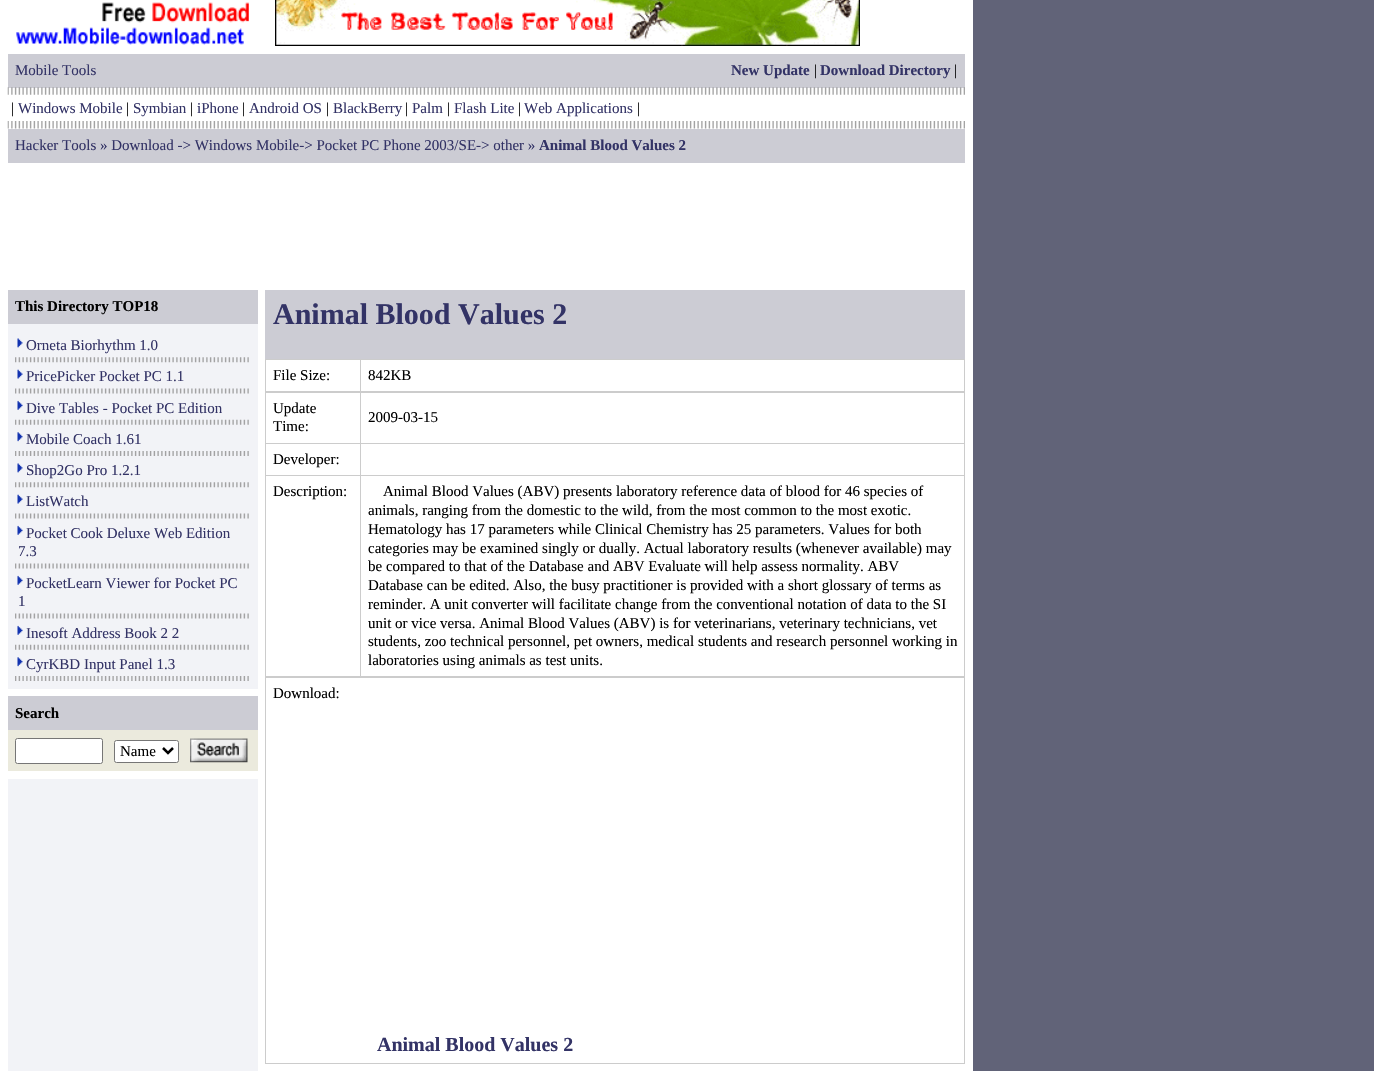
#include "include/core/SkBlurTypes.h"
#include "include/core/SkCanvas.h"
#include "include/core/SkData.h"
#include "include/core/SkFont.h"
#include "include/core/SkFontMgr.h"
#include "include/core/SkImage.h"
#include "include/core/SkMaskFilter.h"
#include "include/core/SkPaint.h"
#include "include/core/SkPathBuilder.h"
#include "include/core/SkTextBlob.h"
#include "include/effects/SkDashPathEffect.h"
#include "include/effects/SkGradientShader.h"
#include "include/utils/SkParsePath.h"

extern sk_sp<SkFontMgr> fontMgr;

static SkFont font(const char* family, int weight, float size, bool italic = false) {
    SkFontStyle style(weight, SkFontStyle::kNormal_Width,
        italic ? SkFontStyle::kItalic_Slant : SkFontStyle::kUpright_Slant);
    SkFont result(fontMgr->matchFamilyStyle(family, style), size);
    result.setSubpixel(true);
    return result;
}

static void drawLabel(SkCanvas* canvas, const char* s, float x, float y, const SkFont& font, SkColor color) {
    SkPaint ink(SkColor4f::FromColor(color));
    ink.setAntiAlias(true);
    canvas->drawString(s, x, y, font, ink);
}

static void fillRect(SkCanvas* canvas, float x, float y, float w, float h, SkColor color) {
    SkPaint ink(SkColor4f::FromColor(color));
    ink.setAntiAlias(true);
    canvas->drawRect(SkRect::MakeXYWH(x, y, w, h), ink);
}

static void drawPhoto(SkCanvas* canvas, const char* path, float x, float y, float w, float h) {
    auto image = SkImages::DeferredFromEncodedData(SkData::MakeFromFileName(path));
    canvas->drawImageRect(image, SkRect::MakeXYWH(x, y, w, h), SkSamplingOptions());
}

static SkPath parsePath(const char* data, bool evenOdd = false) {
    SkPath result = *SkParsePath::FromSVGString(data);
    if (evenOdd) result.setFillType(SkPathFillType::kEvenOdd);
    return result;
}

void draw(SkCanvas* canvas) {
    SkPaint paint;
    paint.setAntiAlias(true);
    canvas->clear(0xFF616378);
    fillRect(canvas, 0, 0, 973, 1071, 0xFFFFFFFF);
    drawPhoto(canvas, "assets/img1.png", 16, 2, 233, 43);
    drawPhoto(canvas, "assets/img2.png", 275, 0, 585, 46);
    fillRect(canvas, 8, 54, 957, 34, 0xFFCCCCD4);
    SkFont font1 = font("Liberation Serif", 400, 15);
    drawLabel(canvas, "Mobile Tools", 15, 75, font1, 0xFF333366);
    SkFont font2 = font("Liberation Serif", 700, 15);
    drawLabel(canvas, "New Update", 731, 75, font2, 0xFF333366);
    drawLabel(canvas, "|", 814, 75, font1, 0xFF000000);
    drawLabel(canvas, "Download Directory", 820, 75, font2, 0xFF333366);
    drawLabel(canvas, "|", 954, 75, font1, 0xFF000000);
    drawPhoto(canvas, "assets/img3.png", 7, 87, 958, 8);
    drawLabel(canvas, "|", 11, 113, font1, 0xFF000000);
    drawLabel(canvas, "Windows Mobile", 18, 113, font1, 0xFF333366);
    drawLabel(canvas, "|", 126, 113, font1, 0xFF000000);
    drawLabel(canvas, "Symbian", 133, 113, font1, 0xFF333366);
    drawLabel(canvas, "|", 190, 113, font1, 0xFF000000);
    drawLabel(canvas, "iPhone", 197, 113, font1, 0xFF333366);
    drawLabel(canvas, "|", 242, 113, font1, 0xFF000000);
    drawLabel(canvas, "Android OS", 249, 113, font1, 0xFF333366);
    drawLabel(canvas, "|", 326, 113, font1, 0xFF000000);
    drawLabel(canvas, "BlackBerry", 333, 113, font1, 0xFF333366);
    drawLabel(canvas, "|", 405, 113, font1, 0xFF000000);
    drawLabel(canvas, "Palm", 412, 113, font1, 0xFF333366);
    drawLabel(canvas, "|", 447, 113, font1, 0xFF000000);
    drawLabel(canvas, "Flash Lite", 454, 113, font1, 0xFF333366);
    drawLabel(canvas, "|", 518, 113, font1, 0xFF000000);
    drawLabel(canvas, "Web Applications", 524, 113, font1, 0xFF333366);
    drawLabel(canvas, "|", 637, 113, font1, 0xFF000000);
    drawPhoto(canvas, "assets/img4.png", 7, 121, 958, 8);
    fillRect(canvas, 8, 129, 957, 34, 0xFFCCCCD4);
    drawLabel(canvas, "Hacker Tools » Download -> Windows Mobile-> Pocket PC Phone 2003/SE-> other »", 15, 150, font1, 0xFF333366);
    drawLabel(canvas, "Animal Blood Values 2", 539, 150, font2, 0xFF333366);
    fillRect(canvas, 8, 324, 250, 747, 0xFFF2F3F7);
    fillRect(canvas, 8, 290, 250, 34, 0xFFCCCCD4);
    drawLabel(canvas, "This Directory TOP18", 15, 311, font2, 0xFF000000);
    drawPhoto(canvas, "assets/img5.png", 17, 338, 6, 10);
    drawLabel(canvas, "Orneta Biorhythm 1.0", 26, 350, font1, 0xFF333366);
    drawPhoto(canvas, "assets/img6.png", 15, 357, 234, 6);
    drawPhoto(canvas, "assets/img7.png", 17, 369, 6, 10);
    drawLabel(canvas, "PricePicker Pocket PC 1.1", 26, 381, font1, 0xFF333366);
    drawPhoto(canvas, "assets/img8.png", 15, 388, 234, 6);
    drawPhoto(canvas, "assets/img9.png", 17, 400, 6, 10);
    drawLabel(canvas, "Dive Tables - Pocket PC Edition", 26, 413, font1, 0xFF333366);
    drawPhoto(canvas, "assets/img10.png", 15, 419, 234, 6);
    drawPhoto(canvas, "assets/img11.png", 17, 432, 6, 10);
    drawLabel(canvas, "Mobile Coach 1.61", 26, 444, font1, 0xFF333366);
    drawPhoto(canvas, "assets/img12.png", 15, 451, 234, 5);
    drawPhoto(canvas, "assets/img5.png", 17, 463, 6, 10);
    drawLabel(canvas, "Shop2Go Pro 1.2.1", 26, 475, font1, 0xFF333366);
    drawPhoto(canvas, "assets/img6.png", 15, 482, 234, 6);
    drawPhoto(canvas, "assets/img7.png", 17, 494, 6, 10);
    drawLabel(canvas, "ListWatch", 26, 506, font1, 0xFF333366);
    drawPhoto(canvas, "assets/img8.png", 15, 513, 234, 6);
    drawPhoto(canvas, "assets/img9.png", 17, 525, 6, 10);
    drawLabel(canvas, "Pocket Cook Deluxe Web Edition", 26, 538, font1, 0xFF333366);
    drawLabel(canvas, "7.3", 18, 556, font1, 0xFF333366);
    drawPhoto(canvas, "assets/img8.png", 15, 563, 234, 6);
    drawPhoto(canvas, "assets/img9.png", 17, 575, 6, 10);
    drawLabel(canvas, "PocketLearn Viewer for Pocket PC", 26, 588, font1, 0xFF333366);
    drawLabel(canvas, "1", 18, 606, font1, 0xFF333366);
    drawPhoto(canvas, "assets/img8.png", 15, 613, 234, 6);
    drawPhoto(canvas, "assets/img9.png", 17, 625, 6, 10);
    drawLabel(canvas, "Inesoft Address Book 2 2", 26, 638, font1, 0xFF333366);
    drawPhoto(canvas, "assets/img10.png", 15, 644, 234, 6);
    drawPhoto(canvas, "assets/img11.png", 17, 657, 6, 10);
    drawLabel(canvas, "CyrKBD Input Panel 1.3", 26, 669, font1, 0xFF333366);
    drawPhoto(canvas, "assets/img12.png", 15, 676, 234, 5);
    fillRect(canvas, 8, 689, 250, 7, 0xFFFFFFFF);
    fillRect(canvas, 8, 696, 250, 34, 0xFFCCCCD4);
    drawLabel(canvas, "Search", 15, 718, font2, 0xFF000000);
    fillRect(canvas, 8, 730, 250, 41, 0xFFEBEADD);
    paint.setColor(0xFFFFFFFF);
    canvas->drawRoundRect(SkRect::MakeXYWH(15.5f, 738.5f, 87, 25), 2, 2, paint);
    paint.setStroke(true);
    paint.setStrokeWidth(1);
    paint.setColor(0xFF767676);
    canvas->drawRoundRect(SkRect::MakeXYWH(15.5f, 738.5f, 87, 25), 2, 2, paint);
    paint.setStroke(false);
    paint.setColor(0xFFFFFFFF);
    canvas->drawRoundRect(SkRect::MakeXYWH(114.5f, 740.5f, 64, 22), 2, 2, paint);
    paint.setStroke(true);
    paint.setColor(0xFF767676);
    canvas->drawRoundRect(SkRect::MakeXYWH(114.5f, 740.5f, 64, 22), 2, 2, paint);
    paint.setStrokeWidth(2.5f);
    paint.setColor(0xFF000000);
    canvas->drawPath(parsePath("M163 748L168 753L173 748"), paint);
    drawLabel(canvas, "Name", 120, 756, font1, 0xFF000000);
    drawPhoto(canvas, "assets/img13.png", 190, 738, 58, 25);
    fillRect(canvas, 8, 771, 250, 8, 0xFFFFFFFF);
    fillRect(canvas, 265, 290, 700, 69, 0xFFCCCCD4);
    SkFont font3 = font("Liberation Serif", 700, 30);
    drawLabel(canvas, "Animal Blood Values 2", 273, 324, font3, 0xFF333366);
    fillRect(canvas, 265, 359, 700, 705, 0xFFCCCCCC);
    fillRect(canvas, 266, 360, 94, 31, 0xFFFFFFFF);
    drawLabel(canvas, "File Size:", 273, 380, font1, 0xFF000000);
    fillRect(canvas, 361, 360, 603, 31, 0xFFFFFFFF);
    drawLabel(canvas, "842KB", 368, 380, font1, 0xFF000000);
    fillRect(canvas, 266, 393, 94, 50, 0xFFFFFFFF);
    drawLabel(canvas, "Update", 273, 413, font1, 0xFF000000);
    drawLabel(canvas, "Time:", 273, 431, font1, 0xFF000000);
    fillRect(canvas, 361, 393, 603, 50, 0xFFFFFFFF);
    drawLabel(canvas, "2009-03-15", 368, 422, font1, 0xFF000000);
    fillRect(canvas, 266, 444, 94, 31, 0xFFFFFFFF);
    drawLabel(canvas, "Developer:", 273, 464, font1, 0xFF000000);
    fillRect(canvas, 361, 444, 603, 31, 0xFFFFFFFF);
    fillRect(canvas, 266, 476, 94, 200, 0xFFFFFFFF);
    drawLabel(canvas, "Description:", 273, 496, font1, 0xFF000000);
    fillRect(canvas, 361, 476, 603, 200, 0xFFFFFFFF);
    drawLabel(canvas, "Animal Blood Values (ABV) presents laboratory reference data of blood for 46 species of", 383, 496, font1, 0xFF000000);
    drawLabel(canvas, "animals, ranging from the domestic to the wild, from the most common to the most exotic.", 368, 515, font1, 0xFF000000);
    drawLabel(canvas, "Hematology has 17 parameters while Clinical Chemistry has 25 parameters. Values for both", 368, 534, font1, 0xFF000000);
    drawLabel(canvas, "categories may be examined singly or dually. Actual laboratory results (whenever available) may", 368, 553, font1, 0xFF000000);
    drawLabel(canvas, "be compared to that of the Database and ABV Evaluate will help assess normality. ABV", 368, 571, font1, 0xFF000000);
    drawLabel(canvas, "Database can be edited. Also, the busy practitioner is provided with a short glossary of terms as", 368, 590, font1, 0xFF000000);
    drawLabel(canvas, "reminder. A unit converter will facilitate change from the conventional notation of data to the SI", 368, 609, font1, 0xFF000000);
    drawLabel(canvas, "unit or vice versa. Animal Blood Values (ABV) is for veterinarians, veterinary technicians, vet", 368, 628, font1, 0xFF000000);
    drawLabel(canvas, "students, zoo technical personnel, pet owners, medical students and research personnel working in", 368, 646, font1, 0xFF000000);
    drawLabel(canvas, "laboratories using animals as test units.", 368, 665, font1, 0xFF000000);
    fillRect(canvas, 266, 678, 698, 385, 0xFFFFFFFF);
    drawLabel(canvas, "Download:", 273, 698, font1, 0xFF000000);
    SkFont font4 = font("Liberation Serif", 700, 20);
    drawLabel(canvas, "Animal Blood Values 2", 377, 1051, font4, 0xFF333366);
}
